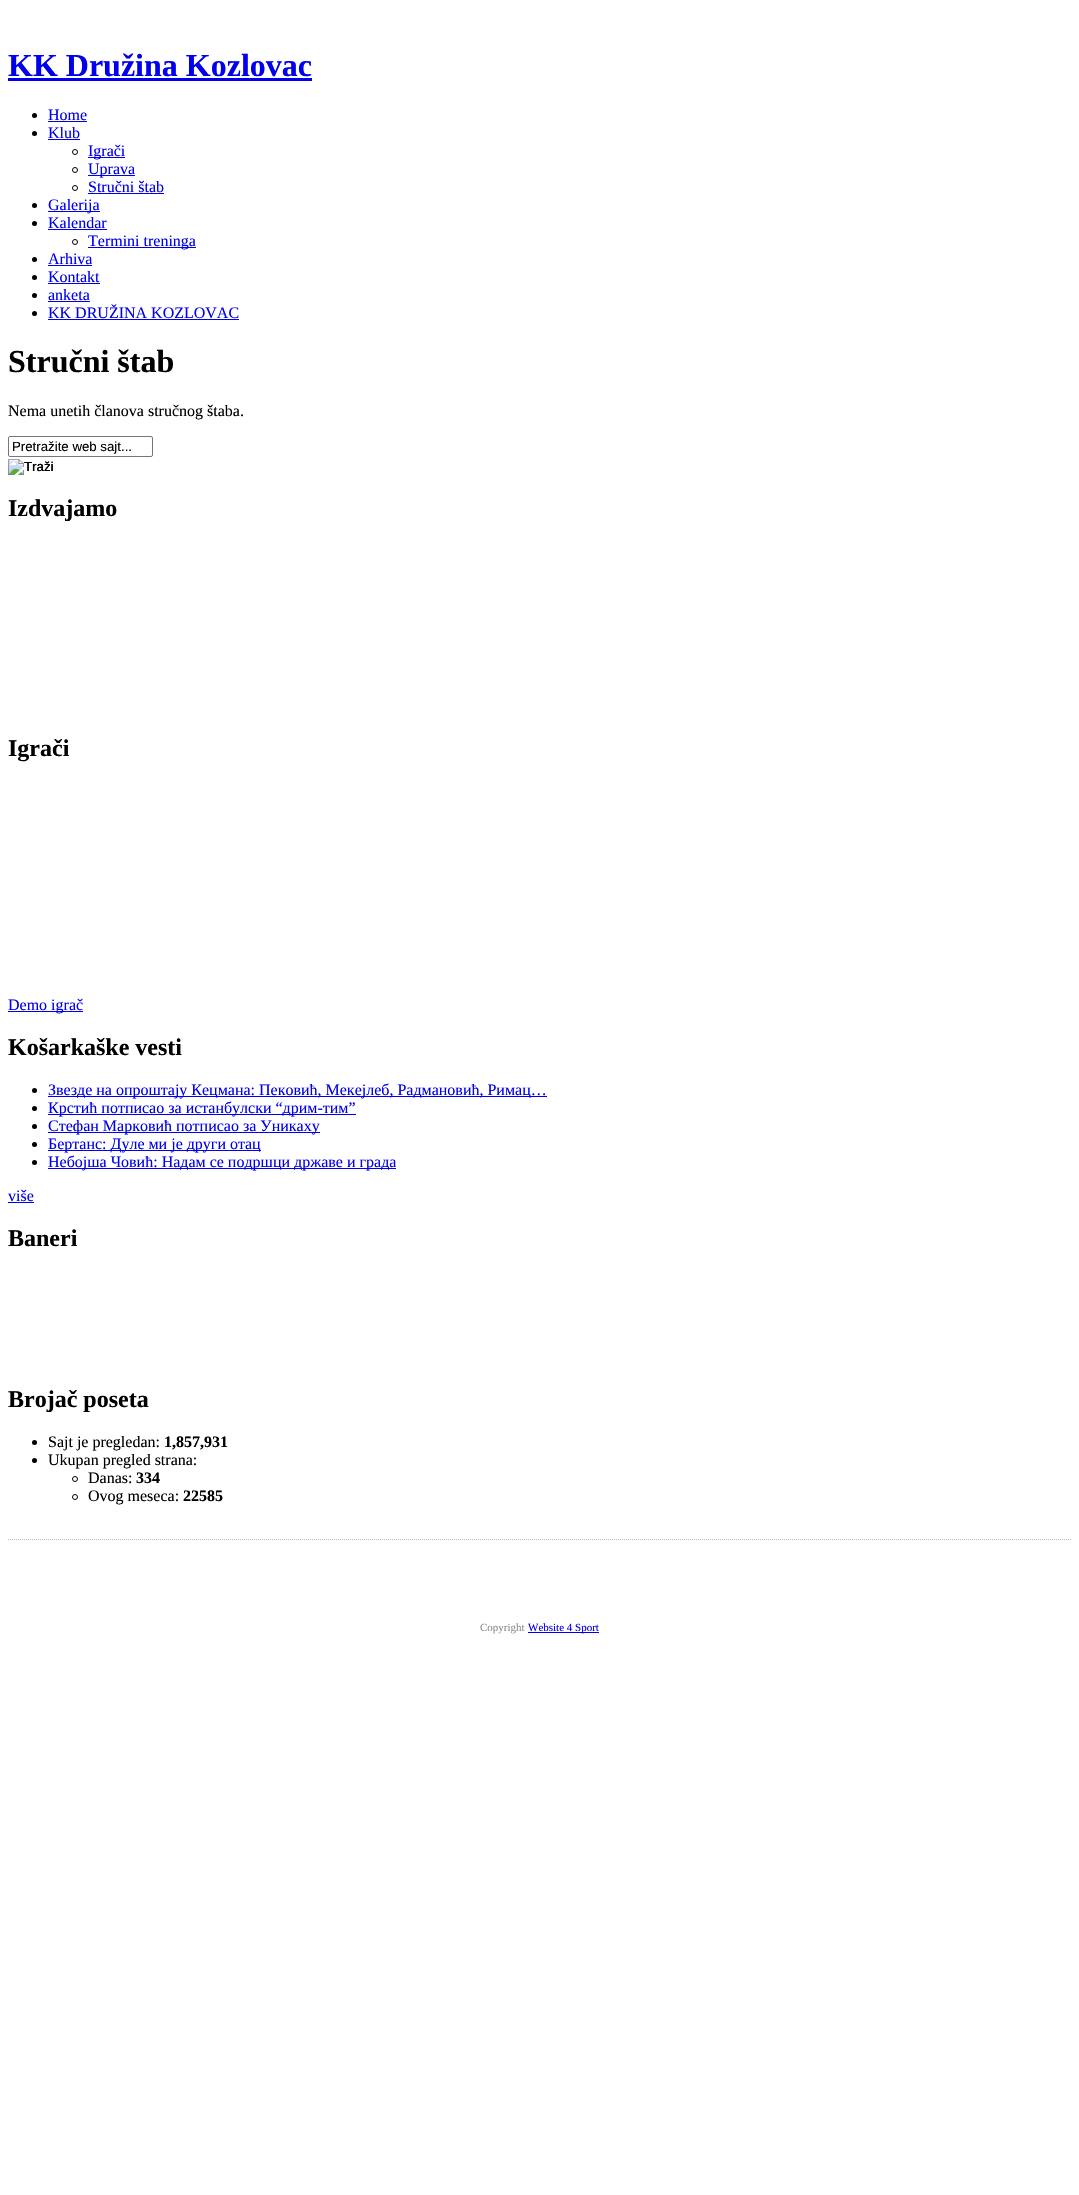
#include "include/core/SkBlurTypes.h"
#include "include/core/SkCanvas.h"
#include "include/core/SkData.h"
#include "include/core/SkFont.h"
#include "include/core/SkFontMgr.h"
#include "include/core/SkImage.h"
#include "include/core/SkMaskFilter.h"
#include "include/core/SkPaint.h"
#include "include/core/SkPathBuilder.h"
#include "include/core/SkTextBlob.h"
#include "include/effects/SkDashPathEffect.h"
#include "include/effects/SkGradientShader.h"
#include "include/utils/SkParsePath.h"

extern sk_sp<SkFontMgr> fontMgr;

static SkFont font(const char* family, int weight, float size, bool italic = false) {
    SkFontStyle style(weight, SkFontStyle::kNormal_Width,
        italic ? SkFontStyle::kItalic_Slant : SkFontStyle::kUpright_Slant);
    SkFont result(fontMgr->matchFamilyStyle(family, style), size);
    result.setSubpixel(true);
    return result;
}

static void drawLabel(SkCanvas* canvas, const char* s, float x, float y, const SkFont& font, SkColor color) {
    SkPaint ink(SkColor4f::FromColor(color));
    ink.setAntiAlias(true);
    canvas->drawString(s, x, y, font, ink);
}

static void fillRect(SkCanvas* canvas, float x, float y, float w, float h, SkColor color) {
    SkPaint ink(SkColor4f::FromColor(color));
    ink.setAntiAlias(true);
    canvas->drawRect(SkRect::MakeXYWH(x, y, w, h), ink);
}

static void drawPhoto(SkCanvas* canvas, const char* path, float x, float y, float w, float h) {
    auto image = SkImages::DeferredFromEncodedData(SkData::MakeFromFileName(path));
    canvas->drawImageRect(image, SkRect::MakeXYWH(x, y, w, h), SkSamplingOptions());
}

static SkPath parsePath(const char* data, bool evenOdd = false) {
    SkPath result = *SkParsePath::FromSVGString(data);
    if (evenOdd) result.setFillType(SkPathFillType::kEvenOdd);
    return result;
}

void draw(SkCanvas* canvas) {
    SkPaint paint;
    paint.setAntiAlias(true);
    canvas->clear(0xFFFFFFFF);
    SkFont font1 = font("Liberation Serif", 700, 32);
    drawLabel(canvas, "KK Družina Kozlovac", 8, 76, font1, 0xFF0000EE);
    fillRect(canvas, 8, 78, 304, 3, 0xFF0000EE);
    paint.setColor(0xFF000000);
    canvas->drawCircle(34.5f, 115.5f, 2.5f, paint);
    SkFont font2 = font("Liberation Serif", 400, 16);
    drawLabel(canvas, "Home", 48, 120, font2, 0xFF0000EE);
    fillRect(canvas, 48, 121, 39, 1, 0xFF0000EE);
    canvas->drawCircle(34.5f, 133.5f, 2.5f, paint);
    drawLabel(canvas, "Klub", 48, 138, font2, 0xFF0000EE);
    fillRect(canvas, 48, 139, 32, 1, 0xFF0000EE);
    paint.setStroke(true);
    paint.setStrokeWidth(1);
    canvas->drawCircle(75, 152, 2.5f, paint);
    fillRect(canvas, 88, 157, 37, 1, 0xFF0000EE);
    drawLabel(canvas, "Igrači", 88, 156, font2, 0xFF0000EE);
    canvas->drawCircle(75, 170, 2.5f, paint);
    fillRect(canvas, 88, 175, 47, 1, 0xFF0000EE);
    drawLabel(canvas, "Uprava", 88, 174, font2, 0xFF0000EE);
    canvas->drawCircle(75, 188, 2.5f, paint);
    drawLabel(canvas, "Stručni štab", 88, 192, font2, 0xFF0000EE);
    fillRect(canvas, 88, 193, 76, 1, 0xFF0000EE);
    paint.setStroke(false);
    canvas->drawCircle(34.5f, 205.5f, 2.5f, paint);
    fillRect(canvas, 48, 211, 52, 1, 0xFF0000EE);
    drawLabel(canvas, "Galerija", 48, 210, font2, 0xFF0000EE);
    canvas->drawCircle(34.5f, 223.5f, 2.5f, paint);
    drawLabel(canvas, "Kalendar", 48, 228, font2, 0xFF0000EE);
    fillRect(canvas, 48, 229, 59, 1, 0xFF0000EE);
    paint.setStroke(true);
    canvas->drawCircle(75, 242, 2.5f, paint);
    fillRect(canvas, 88, 247, 108, 1, 0xFF0000EE);
    drawLabel(canvas, "Termini treninga", 88, 246, font2, 0xFF0000EE);
    paint.setStroke(false);
    canvas->drawCircle(34.5f, 259.5f, 2.5f, paint);
    drawLabel(canvas, "Arhiva", 48, 264, font2, 0xFF0000EE);
    fillRect(canvas, 48, 265, 44, 1, 0xFF0000EE);
    canvas->drawCircle(34.5f, 277.5f, 2.5f, paint);
    drawLabel(canvas, "Kontakt", 48, 282, font2, 0xFF0000EE);
    fillRect(canvas, 48, 283, 52, 1, 0xFF0000EE);
    canvas->drawCircle(34.5f, 295.5f, 2.5f, paint);
    drawLabel(canvas, "anketa", 48, 300, font2, 0xFF0000EE);
    fillRect(canvas, 48, 301, 42, 1, 0xFF0000EE);
    canvas->drawCircle(34.5f, 313.5f, 2.5f, paint);
    drawLabel(canvas, "KK DRUŽINA KOZLOVAC", 48, 318, font2, 0xFF0000EE);
    fillRect(canvas, 48, 319, 191, 1, 0xFF0000EE);
    drawLabel(canvas, "Stručni štab", 8, 372, font1, 0xFF000000);
    drawLabel(canvas, "Nema unetih članova stručnog štaba.", 8, 416, font2, 0xFF000000);
    paint.setStroke(true);
    paint.setColor(0xFF767676);
    canvas->drawRoundRect(SkRect::MakeXYWH(8.5f, 436.5f, 144, 20), 1.5f, 1.5f, paint);
    SkFont font3 = font("Liberation Sans", 400, 13.25f);
    drawLabel(canvas, "Pretražite web sajt...", 12, 451, font3, 0xFF000000);
    drawPhoto(canvas, "assets/img1.png", 8, 459, 45, 16);
    drawLabel(canvas, "Traži", 24, 471, font3, 0xFF000000);
    SkFont font4 = font("Liberation Serif", 700, 24);
    drawLabel(canvas, "Izdvajamo", 8, 516, font4, 0xFF000000);
    drawLabel(canvas, "Igrači", 8, 756, font4, 0xFF000000);
    fillRect(canvas, 8, 1011, 75, 1, 0xFF0000EE);
    drawLabel(canvas, "Demo igrač", 8, 1010, font2, 0xFF0000EE);
    drawLabel(canvas, "Košarkaške vesti", 8, 1055, font4, 0xFF000000);
    paint.setStroke(false);
    paint.setColor(0xFF000000);
    canvas->drawCircle(34.5f, 1090.5f, 2.5f, paint);
    fillRect(canvas, 48, 1096, 499, 1, 0xFF0000EE);
    drawLabel(canvas, "Звезде на опроштају Кецмана: Пековић, Мекејлеб, Радмановић, Римац…", 48, 1095, font2, 0xFF0000EE);
    canvas->drawCircle(34.5f, 1108.5f, 2.5f, paint);
    fillRect(canvas, 48, 1114, 308, 1, 0xFF0000EE);
    drawLabel(canvas, "Крстић потписао за истанбулски “дрим-тим”", 48, 1113, font2, 0xFF0000EE);
    canvas->drawCircle(34.5f, 1126.5f, 2.5f, paint);
    fillRect(canvas, 48, 1132, 272, 1, 0xFF0000EE);
    drawLabel(canvas, "Стефан Марковић потписао за Уникаху", 48, 1131, font2, 0xFF0000EE);
    canvas->drawCircle(34.5f, 1144.5f, 2.5f, paint);
    fillRect(canvas, 48, 1150, 213, 1, 0xFF0000EE);
    drawLabel(canvas, "Бертанс: Дуле ми је други отац", 48, 1149, font2, 0xFF0000EE);
    canvas->drawCircle(34.5f, 1162.5f, 2.5f, paint);
    fillRect(canvas, 48, 1168, 348, 1, 0xFF0000EE);
    drawLabel(canvas, "Небојша Човић: Надам се подршци државе и града", 48, 1167, font2, 0xFF0000EE);
    drawLabel(canvas, "više", 8, 1201, font2, 0xFF0000EE);
    fillRect(canvas, 8, 1202, 26, 1, 0xFF0000EE);
    drawLabel(canvas, "Baneri", 8, 1246, font4, 0xFF000000);
    drawLabel(canvas, "Brojač poseta", 8, 1407, font4, 0xFF000000);
    canvas->drawCircle(34.5f, 1442.5f, 2.5f, paint);
    drawLabel(canvas, "Sajt je pregledan:", 48, 1447, font2, 0xFF000000);
    SkFont font5 = font("Liberation Serif", 700, 16);
    drawLabel(canvas, "1,857,931", 164, 1447, font5, 0xFF000000);
    canvas->drawCircle(34.5f, 1460.5f, 2.5f, paint);
    drawLabel(canvas, "Ukupan pregled strana:", 48, 1465, font2, 0xFF000000);
    paint.setStroke(true);
    canvas->drawCircle(75, 1479, 2.5f, paint);
    drawLabel(canvas, "Danas:", 88, 1483, font2, 0xFF000000);
    drawLabel(canvas, "334", 136, 1483, font5, 0xFF000000);
    canvas->drawCircle(75, 1497, 2.5f, paint);
    drawLabel(canvas, "Ovog meseca:", 88, 1501, font2, 0xFF000000);
    drawLabel(canvas, "22585", 183, 1501, font5, 0xFF000000);
    paint.setColor(0xFFBABABA);
    paint.setPathEffect(SkDashPathEffect::Make({{1, 1}}, 0));
    canvas->drawPath(parsePath("M8 1539.5H1071"), paint);
    paint.setPathEffect(nullptr);
    SkFont font6 = font("Liberation Serif", 400, 11);
    drawLabel(canvas, "Copyright", 480, 1631, font6, 0xFF8E8E8E);
    fillRect(canvas, 528, 1632, 71, 1, 0xFF0000EE);
    drawLabel(canvas, "Website 4 Sport", 528, 1631, font6, 0xFF0000EE);
}
